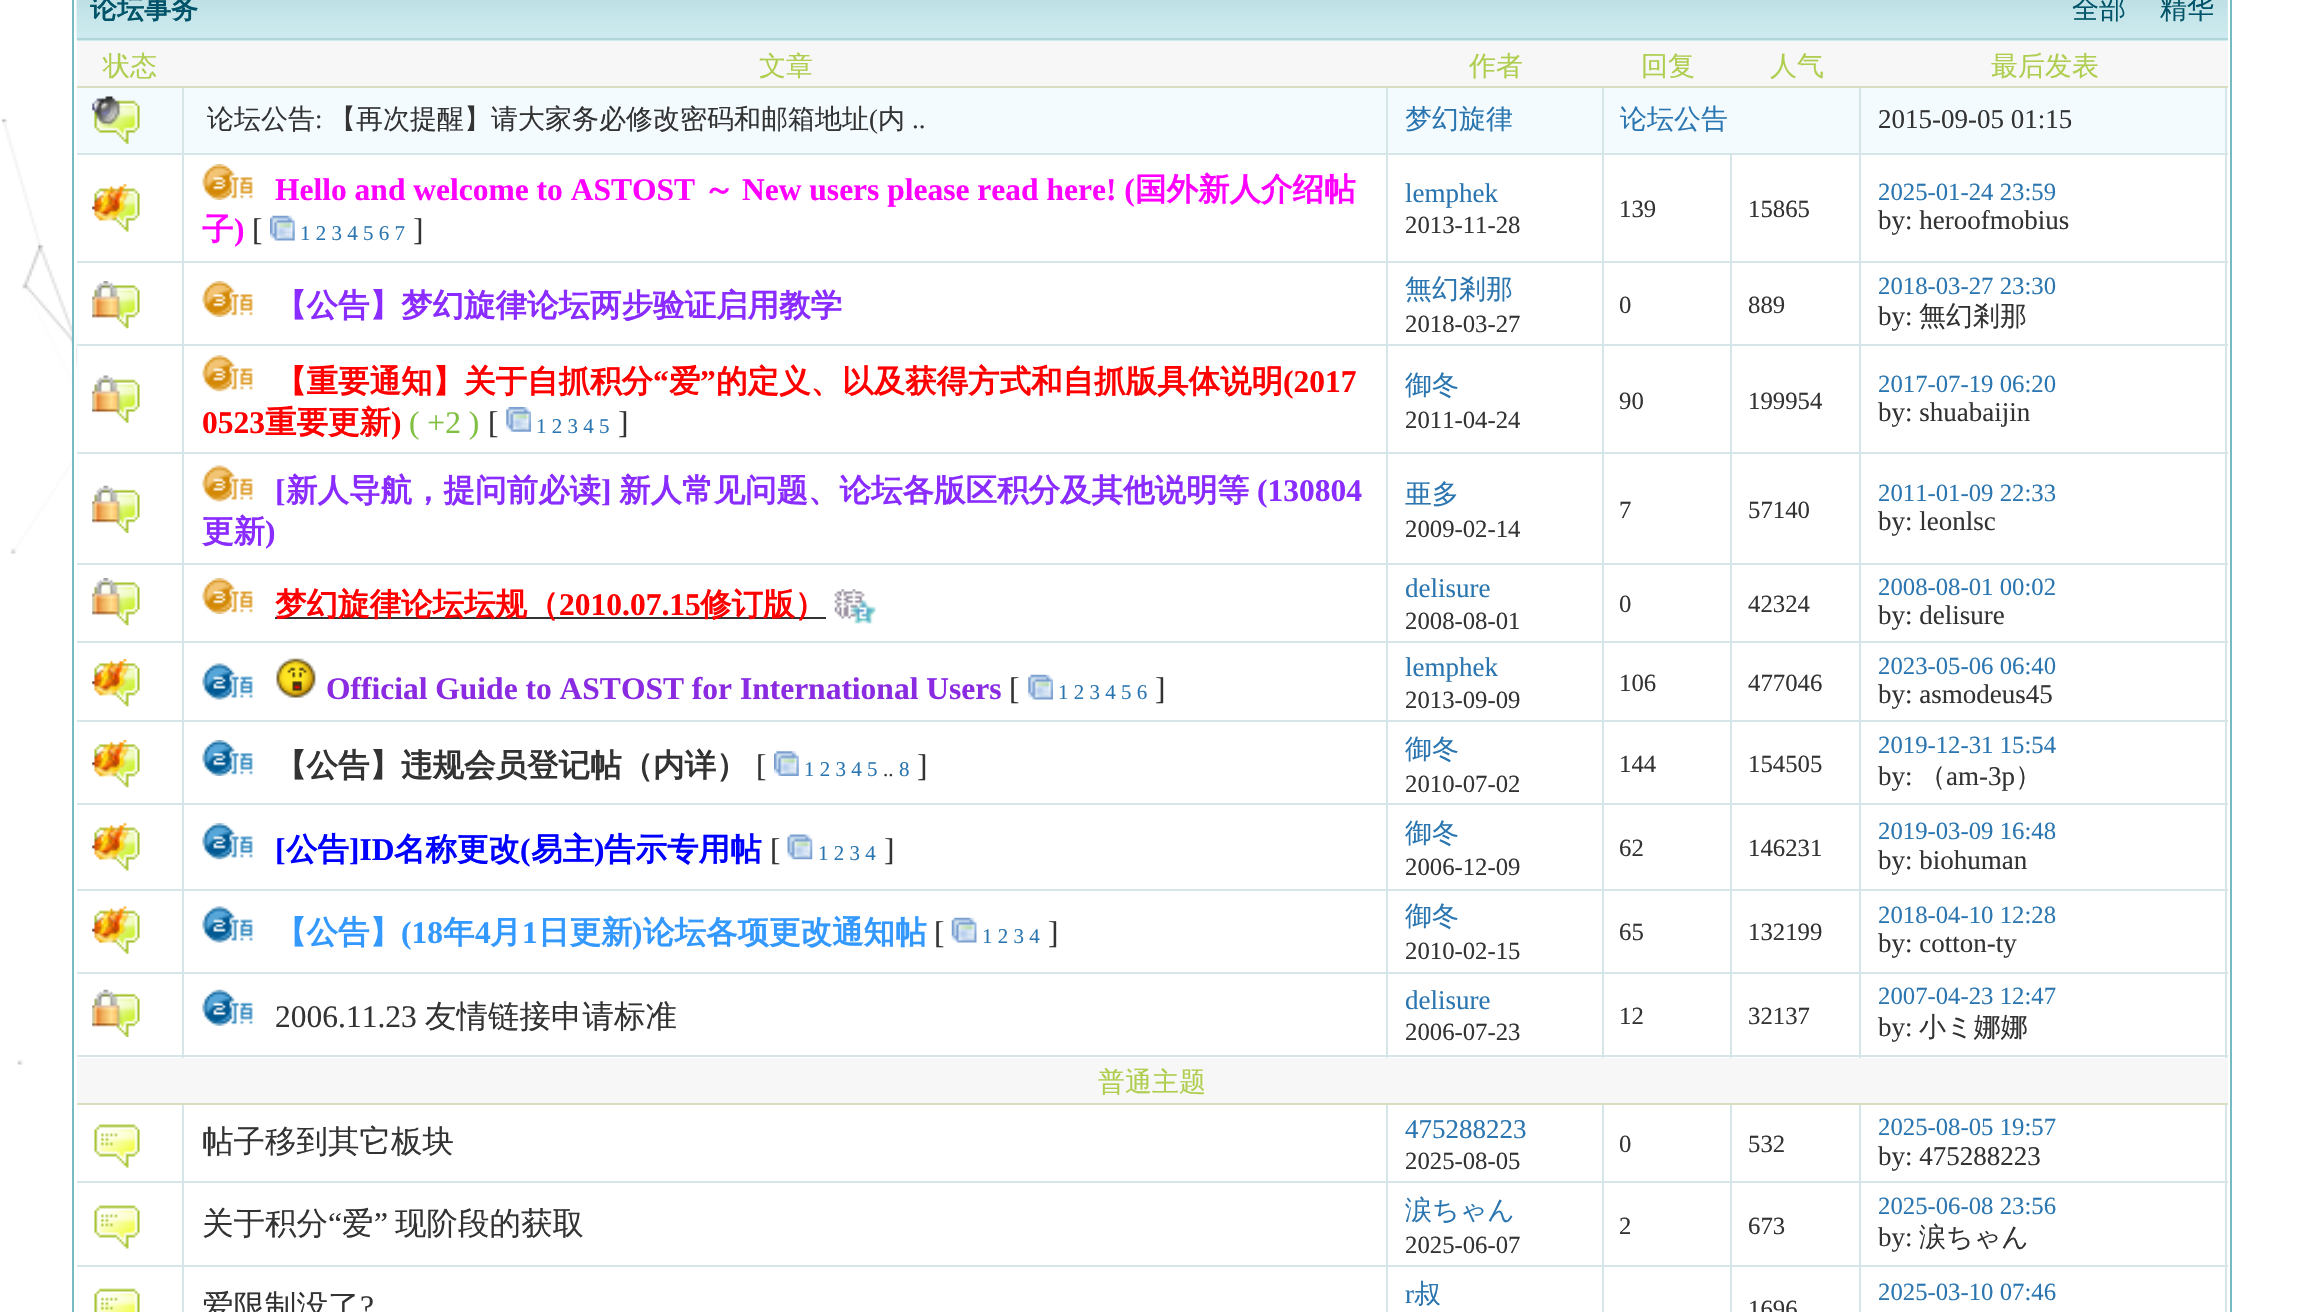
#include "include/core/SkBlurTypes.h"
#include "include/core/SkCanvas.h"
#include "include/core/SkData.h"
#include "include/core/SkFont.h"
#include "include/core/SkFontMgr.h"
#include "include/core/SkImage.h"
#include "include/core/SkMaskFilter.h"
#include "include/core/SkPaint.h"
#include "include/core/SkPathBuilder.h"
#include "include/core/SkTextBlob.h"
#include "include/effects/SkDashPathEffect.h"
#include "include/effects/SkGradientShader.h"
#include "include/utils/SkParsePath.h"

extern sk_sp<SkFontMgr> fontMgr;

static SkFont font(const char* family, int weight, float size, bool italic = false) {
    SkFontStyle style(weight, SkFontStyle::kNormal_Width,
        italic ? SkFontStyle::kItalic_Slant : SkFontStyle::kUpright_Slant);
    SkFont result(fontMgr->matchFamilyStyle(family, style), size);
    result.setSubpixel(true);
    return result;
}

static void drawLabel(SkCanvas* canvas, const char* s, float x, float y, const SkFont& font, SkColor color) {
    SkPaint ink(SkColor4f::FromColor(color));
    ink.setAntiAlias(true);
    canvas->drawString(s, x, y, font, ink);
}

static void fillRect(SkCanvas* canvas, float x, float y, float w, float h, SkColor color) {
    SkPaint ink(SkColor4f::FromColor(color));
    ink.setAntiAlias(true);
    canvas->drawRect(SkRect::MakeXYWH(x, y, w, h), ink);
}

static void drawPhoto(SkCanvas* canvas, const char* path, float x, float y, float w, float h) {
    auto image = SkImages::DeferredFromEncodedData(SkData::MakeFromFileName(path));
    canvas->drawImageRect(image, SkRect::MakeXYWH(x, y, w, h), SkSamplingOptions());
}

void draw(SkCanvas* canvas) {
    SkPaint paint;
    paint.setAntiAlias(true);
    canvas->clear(0xFFFFFFFF);
    drawPhoto(canvas, "assets/img1.png", 1, 118, 76, 947);
    paint.setStroke(true);
    paint.setStrokeWidth(2);
    paint.setColor(0xFF76BAC2);
    canvas->drawRect(SkRect::MakeXYWH(73, -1, 2158, 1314), paint);
    paint.setColor(0xFFFFFFFF);
    canvas->drawRect(SkRect::MakeXYWH(75, -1, 2154, 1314), paint);
    fillRect(canvas, 77, 0, 2151, 41, 0xFFCEECF0);
    drawPhoto(canvas, "assets/img2.png", 76, 0, 2152, 41);
    fillRect(canvas, 77, 38, 2151, 2, 0xFFAED6DB);
    SkFont font1 = font("WenQuanYi Zen Hei", 700, 27);
    drawLabel(canvas, "论坛事务", 90, 18, font1, 0xFF005368);
    SkFont font2 = font("WenQuanYi Zen Hei", 500, 27);
    drawLabel(canvas, "全部", 2072, 18, font2, 0xFF005368);
    drawLabel(canvas, "精华", 2160, 18, font2, 0xFF005368);
    fillRect(canvas, 77, 41, 2151, 45, 0xFFF7F7F7);
    fillRect(canvas, 77, 86, 2151, 2, 0xFFDADDBF);
    drawLabel(canvas, "状态", 103, 75, font2, 0xFFAFCE50);
    drawLabel(canvas, "文章", 759, 75, font2, 0xFFAFCE50);
    drawLabel(canvas, "作者", 1469, 75, font2, 0xFFAFCE50);
    drawLabel(canvas, "回复", 1641, 75, font2, 0xFFAFCE50);
    drawLabel(canvas, "人气", 1770, 75, font2, 0xFFAFCE50);
    drawLabel(canvas, "最后发表", 1991, 75, font2, 0xFFAFCE50);
    fillRect(canvas, 77, 88, 2151, 65, 0xFFF4FBFF);
    fillRect(canvas, 182, 88, 2, 970, 0xFFD5E5E8);
    fillRect(canvas, 77, 153, 108, 2, 0xFFD5E5E8);
    drawPhoto(canvas, "assets/img3.png", 92, 96, 48, 48);
    fillRect(canvas, 1386, 88, 2, 970, 0xFFD5E5E8);
    fillRect(canvas, 185, 153, 1203, 2, 0xFFD5E5E8);
    drawLabel(canvas, "论坛公告", 207, 128, font2, 0xFF333333);
    SkFont font3 = font("Liberation Serif", 400, 27);
    drawLabel(canvas, ":", 315, 128, font3, 0xFF333333);
    drawLabel(canvas, "【再次提醒】请大家务必修改密码和邮箱地址", 329, 128, font2, 0xFF333333);
    drawLabel(canvas, "(", 869, 128, font3, 0xFF333333);
    drawLabel(canvas, "内", 878, 128, font2, 0xFF333333);
    drawLabel(canvas, "..", 912, 128, font3, 0xFF333333);
    fillRect(canvas, 1602, 88, 2, 970, 0xFFD5E5E8);
    fillRect(canvas, 1388, 153, 216, 2, 0xFFD5E5E8);
    drawLabel(canvas, "梦幻旋律", 1405, 128, font2, 0xFF2B76B0);
    fillRect(canvas, 1859, 88, 2, 970, 0xFFD5E5E8);
    fillRect(canvas, 1604, 153, 257, 2, 0xFFD5E5E8);
    drawLabel(canvas, "论坛公告", 1620, 128, font2, 0xFF2B76B0);
    fillRect(canvas, 2225, 88, 2, 970, 0xFFD5E5E8);
    fillRect(canvas, 1861, 153, 367, 2, 0xFFD5E5E8);
    drawLabel(canvas, "2015-09-05 01:15", 1878, 128, font3, 0xFF333333);
    drawPhoto(canvas, "assets/img4.png", 202, 164, 51, 36);
    SkFont font4 = font("Liberation Serif", 700, 31.5f);
    drawLabel(canvas, "Hello and welcome to ASTOST", 275, 200, font4, 0xFFFF00FF);
    SkFont font5 = font("WenQuanYi Zen Hei", 700, 31.5f);
    drawLabel(canvas, "～", 703, 200, font5, 0xFFFF00FF);
    drawLabel(canvas, "New users please read here! (", 742, 200, font4, 0xFFFF00FF);
    drawLabel(canvas, "国外新人介绍帖", 1135, 200, font5, 0xFFFF00FF);
    drawLabel(canvas, "子", 202, 240, font5, 0xFFFF00FF);
    drawLabel(canvas, ")", 234, 240, font4, 0xFFFF00FF);
    SkFont font6 = font("Liberation Serif", 400, 31.5f);
    drawLabel(canvas, "[", 252, 240, font6, 0xFF333333);
    drawPhoto(canvas, "assets/img5.png", 270, 215, 25, 26);
    SkFont font7 = font("Liberation Serif", 400, 21);
    drawLabel(canvas, "1 2 3 4 5 6 7", 300, 240, font7, 0xFF2B76B0);
    drawLabel(canvas, "]", 413, 240, font6, 0xFF333333);
    drawLabel(canvas, "lemphek", 1405, 202, font3, 0xFF2B76B0);
    SkFont font8 = font("Liberation Serif", 400, 24.75f);
    drawLabel(canvas, "2013-11-28", 1405, 233, font8, 0xFF333333);
    drawLabel(canvas, "2025-01-24 23:59", 1878, 200, font8, 0xFF2B76B0);
    drawLabel(canvas, "by: heroofmobius", 1878, 229, font3, 0xFF333333);
    fillRect(canvas, 77, 261, 1527, 2, 0xFFD5E5E8);
    drawPhoto(canvas, "assets/img6.png", 92, 184, 48, 48);
    fillRect(canvas, 1730, 155, 2, 903, 0xFFD5E5E8);
    fillRect(canvas, 1604, 261, 624, 2, 0xFFD5E5E8);
    drawLabel(canvas, "139", 1619, 217, font8, 0xFF333333);
    drawLabel(canvas, "15865", 1748, 217, font8, 0xFF333333);
    drawLabel(canvas, "無幻剎那", 1405, 298, font2, 0xFF2B76B0);
    drawLabel(canvas, "2018-03-27", 1405, 332, font8, 0xFF333333);
    drawLabel(canvas, "2018-03-27 23:30", 1878, 294, font8, 0xFF2B76B0);
    drawLabel(canvas, "by:", 1878, 325, font3, 0xFF333333);
    drawLabel(canvas, "無幻剎那", 1919, 325, font2, 0xFF333333);
    fillRect(canvas, 77, 344, 2151, 2, 0xFFD5E5E8);
    drawPhoto(canvas, "assets/img7.png", 92, 281, 48, 48);
    drawPhoto(canvas, "assets/img4.png", 202, 281, 51, 36);
    drawLabel(canvas, "【公告】梦幻旋律论坛两步验证启用教学", 275, 316, font5, 0xFF8A2BFF);
    drawLabel(canvas, "0", 1619, 313, font8, 0xFF333333);
    drawLabel(canvas, "889", 1748, 313, font8, 0xFF333333);
    drawPhoto(canvas, "assets/img8.png", 202, 355, 51, 37);
    drawLabel(canvas, "【重要通知】关于自抓积分", 275, 392, font5, 0xFFFF0000);
    drawLabel(canvas, "“", 653, 392, font4, 0xFFFF0000);
    drawLabel(canvas, "爱", 669, 392, font5, 0xFFFF0000);
    drawLabel(canvas, "”", 700, 392, font4, 0xFFFF0000);
    drawLabel(canvas, "的定义、以及获得方式和自抓版具体说明", 716, 392, font5, 0xFFFF0000);
    drawLabel(canvas, "(2017", 1283, 392, font4, 0xFFFF0000);
    drawLabel(canvas, "0523", 202, 433, font4, 0xFFFF0000);
    drawLabel(canvas, "重要更新", 265, 433, font5, 0xFFFF0000);
    drawLabel(canvas, ")", 391, 433, font4, 0xFFFF0000);
    drawLabel(canvas, "( +2 )", 409, 433, font6, 0xFF80C040);
    drawLabel(canvas, "[", 488, 433, font6, 0xFF333333);
    drawPhoto(canvas, "assets/img9.png", 506, 407, 25, 25);
    drawLabel(canvas, "1 2 3 4 5", 536, 433, font7, 0xFF2B76B0);
    drawLabel(canvas, "]", 618, 433, font6, 0xFF333333);
    drawLabel(canvas, "御冬", 1405, 394, font2, 0xFF2B76B0);
    drawLabel(canvas, "2011-04-24", 1405, 428, font8, 0xFF333333);
    fillRect(canvas, 77, 452, 2151, 2, 0xFFD5E5E8);
    drawPhoto(canvas, "assets/img10.png", 92, 375, 48, 48);
    drawLabel(canvas, "90", 1619, 409, font8, 0xFF333333);
    drawLabel(canvas, "199954", 1748, 409, font8, 0xFF333333);
    drawLabel(canvas, "2017-07-19 06:20", 1878, 392, font8, 0xFF2B76B0);
    drawLabel(canvas, "by: shuabaijin", 1878, 421, font3, 0xFF333333);
    drawPhoto(canvas, "assets/img11.png", 202, 465, 51, 37);
    drawLabel(canvas, "[", 275, 501, font4, 0xFF8A2BFF);
    drawLabel(canvas, "新人导航，提问前必读", 286, 501, font5, 0xFF8A2BFF);
    drawLabel(canvas, "]", 601, 501, font4, 0xFF8A2BFF);
    drawLabel(canvas, "新人常见问题、论坛各版区积分及其他说明等", 619, 501, font5, 0xFF8A2BFF);
    drawLabel(canvas, "(130804", 1257, 501, font4, 0xFF8A2BFF);
    drawLabel(canvas, "更新", 202, 542, font5, 0xFF8A2BFF);
    drawLabel(canvas, ")", 265, 542, font4, 0xFF8A2BFF);
    drawLabel(canvas, "亜多", 1405, 503, font2, 0xFF2B76B0);
    drawLabel(canvas, "2009-02-14", 1405, 537, font8, 0xFF333333);
    drawLabel(canvas, "2011-01-09 22:33", 1878, 501, font8, 0xFF2B76B0);
    drawLabel(canvas, "by: leonlsc", 1878, 530, font3, 0xFF333333);
    fillRect(canvas, 77, 563, 2151, 2, 0xFFD5E5E8);
    drawPhoto(canvas, "assets/img12.png", 92, 485, 48, 48);
    drawLabel(canvas, "7", 1619, 518, font8, 0xFF333333);
    drawLabel(canvas, "57140", 1748, 518, font8, 0xFF333333);
    fillRect(canvas, 77, 641, 2151, 2, 0xFFD5E5E8);
    drawPhoto(canvas, "assets/img13.png", 92, 578, 48, 48);
    drawPhoto(canvas, "assets/img14.png", 202, 578, 51, 36);
    fillRect(canvas, 275, 617, 551, 2, 0xFF333333);
    drawLabel(canvas, "梦幻旋律论坛坛规（", 275, 615, font5, 0xFFFF0000);
    drawLabel(canvas, "2010.07.15", 559, 615, font4, 0xFFFF0000);
    drawLabel(canvas, "修订版）", 700, 615, font5, 0xFFFF0000);
    drawPhoto(canvas, "assets/img15.png", 834, 589, 42, 35);
    drawLabel(canvas, "delisure", 1405, 597, font3, 0xFF2B76B0);
    drawLabel(canvas, "2008-08-01", 1405, 629, font8, 0xFF333333);
    drawLabel(canvas, "0", 1619, 612, font8, 0xFF333333);
    drawLabel(canvas, "42324", 1748, 612, font8, 0xFF333333);
    drawLabel(canvas, "2008-08-01 00:02", 1878, 595, font8, 0xFF2B76B0);
    drawLabel(canvas, "by: delisure", 1878, 624, font3, 0xFF333333);
    drawLabel(canvas, "lemphek", 1405, 676, font3, 0xFF2B76B0);
    drawLabel(canvas, "2013-09-09", 1405, 708, font8, 0xFF333333);
    drawLabel(canvas, "2023-05-06 06:40", 1878, 674, font8, 0xFF2B76B0);
    drawLabel(canvas, "by: asmodeus45", 1878, 703, font3, 0xFF333333);
    fillRect(canvas, 77, 720, 2151, 2, 0xFFD5E5E8);
    drawPhoto(canvas, "assets/img16.png", 92, 659, 48, 48);
    drawPhoto(canvas, "assets/img17.png", 202, 663, 51, 37);
    drawPhoto(canvas, "assets/img18.png", 276, 658, 40, 40);
    drawLabel(canvas, "Official Guide to ASTOST for International Users", 326, 699, font4, 0xFF8A2BE2);
    drawLabel(canvas, "[", 1009, 699, font6, 0xFF333333);
    drawPhoto(canvas, "assets/img19.png", 1028, 674, 25, 26);
    drawLabel(canvas, "1 2 3 4 5 6", 1058, 699, font7, 0xFF2B76B0);
    drawLabel(canvas, "]", 1155, 699, font6, 0xFF333333);
    drawLabel(canvas, "106", 1619, 691, font8, 0xFF333333);
    drawLabel(canvas, "477046", 1748, 691, font8, 0xFF333333);
    drawLabel(canvas, "御冬", 1405, 758, font2, 0xFF2B76B0);
    drawLabel(canvas, "2010-07-02", 1405, 792, font8, 0xFF333333);
    drawLabel(canvas, "2019-12-31 15:54", 1878, 753, font8, 0xFF2B76B0);
    drawLabel(canvas, "by:", 1878, 785, font3, 0xFF333333);
    drawLabel(canvas, "（", 1919, 785, font2, 0xFF333333);
    drawLabel(canvas, "am-3p", 1946, 785, font3, 0xFF333333);
    drawLabel(canvas, "）", 2015, 785, font2, 0xFF333333);
    fillRect(canvas, 77, 803, 2151, 2, 0xFFD5E5E8);
    drawPhoto(canvas, "assets/img16.png", 92, 740, 48, 48);
    drawPhoto(canvas, "assets/img20.png", 202, 740, 51, 36);
    drawLabel(canvas, "【公告】违规会员登记帖（内详）", 275, 776, font5, 0xFF333333);
    drawLabel(canvas, "[", 756, 776, font6, 0xFF333333);
    drawPhoto(canvas, "assets/img21.png", 774, 751, 25, 25);
    drawLabel(canvas, "1 2 3 4 5", 804, 776, font7, 0xFF2B76B0);
    drawLabel(canvas, "..", 883, 776, font7, 0xFF333333);
    drawLabel(canvas, "8", 899, 776, font7, 0xFF2B76B0);
    drawLabel(canvas, "]", 917, 776, font6, 0xFF333333);
    drawLabel(canvas, "144", 1619, 772, font8, 0xFF333333);
    drawLabel(canvas, "154505", 1748, 772, font8, 0xFF333333);
    drawLabel(canvas, "御冬", 1405, 842, font2, 0xFF2B76B0);
    drawLabel(canvas, "2006-12-09", 1405, 875, font8, 0xFF333333);
    drawLabel(canvas, "2019-03-09 16:48", 1878, 839, font8, 0xFF2B76B0);
    drawLabel(canvas, "by: biohuman", 1878, 869, font3, 0xFF333333);
    fillRect(canvas, 77, 889, 2151, 2, 0xFFD5E5E8);
    drawPhoto(canvas, "assets/img6.png", 92, 823, 48, 48);
    drawPhoto(canvas, "assets/img22.png", 202, 823, 51, 37);
    drawLabel(canvas, "[", 275, 860, font4, 0xFF0000FF);
    drawLabel(canvas, "公告", 286, 860, font5, 0xFF0000FF);
    drawLabel(canvas, "]ID", 349, 860, font4, 0xFF0000FF);
    drawLabel(canvas, "名称更改", 394, 860, font5, 0xFF0000FF);
    drawLabel(canvas, "(", 520, 860, font4, 0xFF0000FF);
    drawLabel(canvas, "易主", 531, 860, font5, 0xFF0000FF);
    drawLabel(canvas, ")", 594, 860, font4, 0xFF0000FF);
    drawLabel(canvas, "告示专用帖", 604, 860, font5, 0xFF0000FF);
    drawLabel(canvas, "[", 770, 860, font6, 0xFF333333);
    drawPhoto(canvas, "assets/img23.png", 787, 834, 26, 26);
    drawLabel(canvas, "1 2 3 4", 818, 860, font7, 0xFF2B76B0);
    drawLabel(canvas, "]", 884, 860, font6, 0xFF333333);
    drawLabel(canvas, "62", 1619, 856, font8, 0xFF333333);
    drawLabel(canvas, "146231", 1748, 856, font8, 0xFF333333);
    drawLabel(canvas, "御冬", 1405, 925, font2, 0xFF2B76B0);
    drawLabel(canvas, "2010-02-15", 1405, 959, font8, 0xFF333333);
    fillRect(canvas, 77, 972, 2151, 2, 0xFFD5E5E8);
    drawPhoto(canvas, "assets/img24.png", 92, 906, 48, 48);
    drawPhoto(canvas, "assets/img17.png", 202, 906, 51, 37);
    drawLabel(canvas, "【公告】", 275, 943, font5, 0xFF3399FF);
    drawLabel(canvas, "(18", 401, 943, font4, 0xFF3399FF);
    drawLabel(canvas, "年", 443, 943, font5, 0xFF3399FF);
    drawLabel(canvas, "4", 475, 943, font4, 0xFF3399FF);
    drawLabel(canvas, "月", 490, 943, font5, 0xFF3399FF);
    drawLabel(canvas, "1", 522, 943, font4, 0xFF3399FF);
    drawLabel(canvas, "日更新", 538, 943, font5, 0xFF3399FF);
    drawLabel(canvas, ")", 632, 943, font4, 0xFF3399FF);
    drawLabel(canvas, "论坛各项更改通知帖", 643, 943, font5, 0xFF3399FF);
    drawLabel(canvas, "[", 934, 943, font6, 0xFF333333);
    drawPhoto(canvas, "assets/img25.png", 951, 917, 26, 26);
    drawLabel(canvas, "1 2 3 4", 982, 943, font7, 0xFF2B76B0);
    drawLabel(canvas, "]", 1048, 943, font6, 0xFF333333);
    drawLabel(canvas, "65", 1619, 940, font8, 0xFF333333);
    drawLabel(canvas, "132199", 1748, 940, font8, 0xFF333333);
    drawLabel(canvas, "2018-04-10 12:28", 1878, 923, font8, 0xFF2B76B0);
    drawLabel(canvas, "by: cotton-ty", 1878, 952, font3, 0xFF333333);
    drawLabel(canvas, "2007-04-23 12:47", 1878, 1004, font8, 0xFF2B76B0);
    drawLabel(canvas, "by:", 1878, 1036, font3, 0xFF333333);
    drawLabel(canvas, "小ミ娜娜", 1919, 1036, font2, 0xFF333333);
    fillRect(canvas, 77, 1055, 2151, 2, 0xFFD5E5E8);
    drawPhoto(canvas, "assets/img12.png", 92, 989, 48, 48);
    drawPhoto(canvas, "assets/img26.png", 202, 989, 51, 37);
    drawLabel(canvas, "2006.11.23", 275, 1027, font6, 0xFF333333);
    SkFont font9 = font("WenQuanYi Zen Hei", 500, 31.5f);
    drawLabel(canvas, "友情链接申请标准", 425, 1027, font9, 0xFF333333);
    drawLabel(canvas, "delisure", 1405, 1009, font3, 0xFF2B76B0);
    drawLabel(canvas, "2006-07-23", 1405, 1040, font8, 0xFF333333);
    drawLabel(canvas, "12", 1619, 1024, font8, 0xFF333333);
    drawLabel(canvas, "32137", 1748, 1024, font8, 0xFF333333);
    fillRect(canvas, 77, 1058, 2151, 45, 0xFFF7F7F7);
    fillRect(canvas, 77, 1103, 2151, 2, 0xFFDADDBF);
    drawLabel(canvas, "普通主题", 1098, 1091, font2, 0xFFAFCE50);
    fillRect(canvas, 182, 1105, 2, 207, 0xFFD5E5E8);
    fillRect(canvas, 77, 1181, 108, 2, 0xFFD5E5E8);
    drawPhoto(canvas, "assets/img27.png", 94, 1124, 46, 44);
    fillRect(canvas, 1386, 1105, 2, 207, 0xFFD5E5E8);
    fillRect(canvas, 185, 1181, 1203, 2, 0xFFD5E5E8);
    drawLabel(canvas, "帖子移到其它板块", 202, 1152, font9, 0xFF333333);
    fillRect(canvas, 1602, 1105, 2, 207, 0xFFD5E5E8);
    fillRect(canvas, 1388, 1181, 216, 2, 0xFFD5E5E8);
    drawLabel(canvas, "475288223", 1405, 1138, font3, 0xFF2B76B0);
    drawLabel(canvas, "2025-08-05", 1405, 1169, font8, 0xFF333333);
    fillRect(canvas, 1730, 1105, 2, 207, 0xFFD5E5E8);
    fillRect(canvas, 1604, 1181, 129, 2, 0xFFD5E5E8);
    drawLabel(canvas, "0", 1619, 1152, font8, 0xFF333333);
    fillRect(canvas, 1859, 1105, 2, 207, 0xFFD5E5E8);
    fillRect(canvas, 1733, 1181, 128, 2, 0xFFD5E5E8);
    drawLabel(canvas, "532", 1748, 1152, font8, 0xFF333333);
    fillRect(canvas, 2225, 1105, 2, 207, 0xFFD5E5E8);
    fillRect(canvas, 1861, 1181, 367, 2, 0xFFD5E5E8);
    drawLabel(canvas, "2025-08-05 19:57", 1878, 1135, font8, 0xFF2B76B0);
    drawLabel(canvas, "by: 475288223", 1878, 1165, font3, 0xFF333333);
    drawLabel(canvas, "涙ちゃん", 1405, 1219, font2, 0xFF2B76B0);
    drawLabel(canvas, "2025-06-07", 1405, 1253, font8, 0xFF333333);
    drawLabel(canvas, "2025-06-08 23:56", 1878, 1214, font8, 0xFF2B76B0);
    drawLabel(canvas, "by:", 1878, 1246, font3, 0xFF333333);
    drawLabel(canvas, "涙ちゃん", 1919, 1246, font2, 0xFF333333);
    fillRect(canvas, 77, 1265, 2151, 2, 0xFFD5E5E8);
    drawPhoto(canvas, "assets/img27.png", 94, 1205, 46, 44);
    drawLabel(canvas, "关于积分", 202, 1234, font9, 0xFF333333);
    drawLabel(canvas, "“", 328, 1234, font6, 0xFF333333);
    drawLabel(canvas, "爱", 342, 1234, font9, 0xFF333333);
    drawLabel(canvas, "”", 374, 1234, font6, 0xFF333333);
    drawLabel(canvas, "现阶段的获取", 395, 1234, font9, 0xFF333333);
    drawLabel(canvas, "2", 1619, 1234, font8, 0xFF333333);
    drawLabel(canvas, "673", 1748, 1234, font8, 0xFF333333);
    drawPhoto(canvas, "assets/img28.png", 94, 1288, 46, 24);
    drawLabel(canvas, "爱限制没了", 202, 1317, font9, 0xFF333333);
    drawLabel(canvas, "?", 360, 1317, font6, 0xFF333333);
    drawLabel(canvas, "r", 1405, 1303, font3, 0xFF2B76B0);
    drawLabel(canvas, "叔", 1414, 1303, font2, 0xFF2B76B0);
    drawLabel(canvas, "1696", 1748, 1317, font8, 0xFF333333);
    drawLabel(canvas, "2025-03-10 07:46", 1878, 1300, font8, 0xFF2B76B0);
}
